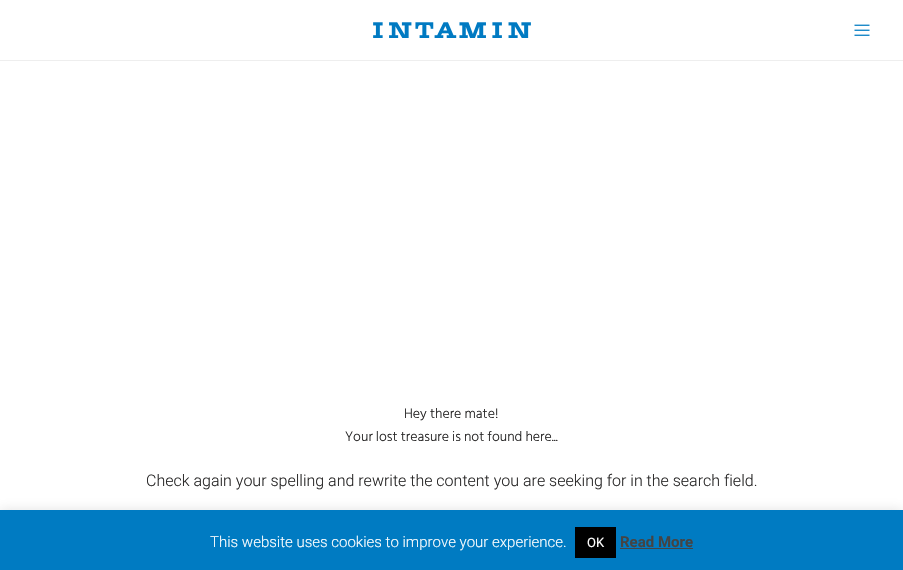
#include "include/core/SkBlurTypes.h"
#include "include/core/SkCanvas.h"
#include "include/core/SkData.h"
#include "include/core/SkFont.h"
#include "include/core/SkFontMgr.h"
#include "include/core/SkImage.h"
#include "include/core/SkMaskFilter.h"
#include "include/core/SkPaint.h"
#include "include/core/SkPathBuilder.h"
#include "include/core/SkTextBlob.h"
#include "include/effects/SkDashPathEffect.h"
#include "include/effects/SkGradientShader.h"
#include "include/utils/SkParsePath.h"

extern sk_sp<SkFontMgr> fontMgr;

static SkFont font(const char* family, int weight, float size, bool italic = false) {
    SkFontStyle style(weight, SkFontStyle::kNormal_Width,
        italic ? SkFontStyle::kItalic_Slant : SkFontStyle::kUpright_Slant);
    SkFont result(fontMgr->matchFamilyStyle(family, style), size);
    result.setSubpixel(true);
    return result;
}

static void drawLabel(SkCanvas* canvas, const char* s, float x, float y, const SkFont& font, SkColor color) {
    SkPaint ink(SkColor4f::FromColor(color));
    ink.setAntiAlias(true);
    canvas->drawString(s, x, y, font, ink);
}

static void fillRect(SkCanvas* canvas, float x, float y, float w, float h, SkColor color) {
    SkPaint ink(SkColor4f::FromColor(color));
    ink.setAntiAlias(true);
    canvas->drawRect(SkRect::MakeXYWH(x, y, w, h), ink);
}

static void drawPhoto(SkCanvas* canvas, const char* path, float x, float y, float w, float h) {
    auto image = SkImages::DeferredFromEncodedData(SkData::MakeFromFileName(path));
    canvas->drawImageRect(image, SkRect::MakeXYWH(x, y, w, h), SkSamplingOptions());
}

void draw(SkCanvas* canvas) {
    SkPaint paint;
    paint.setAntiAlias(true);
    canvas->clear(0xFFFFFFFF);
    drawPhoto(canvas, "assets/img1.png", 373, 22, 158, 16);
    drawPhoto(canvas, "assets/img2.png", 854, 24, 16, 12);
    fillRect(canvas, 0, 60, 903, 1, 0xFFEEEEEE);
    SkFont font1 = font("Hind Siliguri", 300, 14);
    drawLabel(canvas, "Hey there mate!", 404, 418, font1, 0xFF282727);
    drawLabel(canvas, "Your lost treasure is not found here...", 345, 441, font1, 0xFF282727);
    SkFont font2 = font("Roboto", 300, 16);
    drawLabel(canvas, "Check again your spelling and rewrite the content you are seeking for in the search field.", 146, 486, font2, 0xFF282727);
    paint.setColor(0x4DACABAB);
    paint.setMaskFilter(SkMaskFilter::MakeBlur(kNormal_SkBlurStyle, 5));
    canvas->drawRect(SkRect::MakeXYWH(0, 509, 903, 60), paint);
    paint.setMaskFilter(nullptr);
    fillRect(canvas, 0, 510, 903, 60, 0xFF007BC2);
    SkFont font3 = font("Roboto", 300, 15);
    drawLabel(canvas, "This website uses cookies to improve your experience.", 210, 547, font3, 0xFFFFFFFF);
    fillRect(canvas, 575, 527, 41, 31, 0xFF000000);
    SkFont font4 = font("Roboto", 400, 13);
    drawLabel(canvas, "OK", 587, 547, font4, 0xFFFFFFFF);
    SkFont font5 = font("Roboto", 700, 15);
    drawLabel(canvas, "Read More", 620, 547, font5, 0xFF444444);
    fillRect(canvas, 620, 548, 73, 1, 0xFF444444);
}
